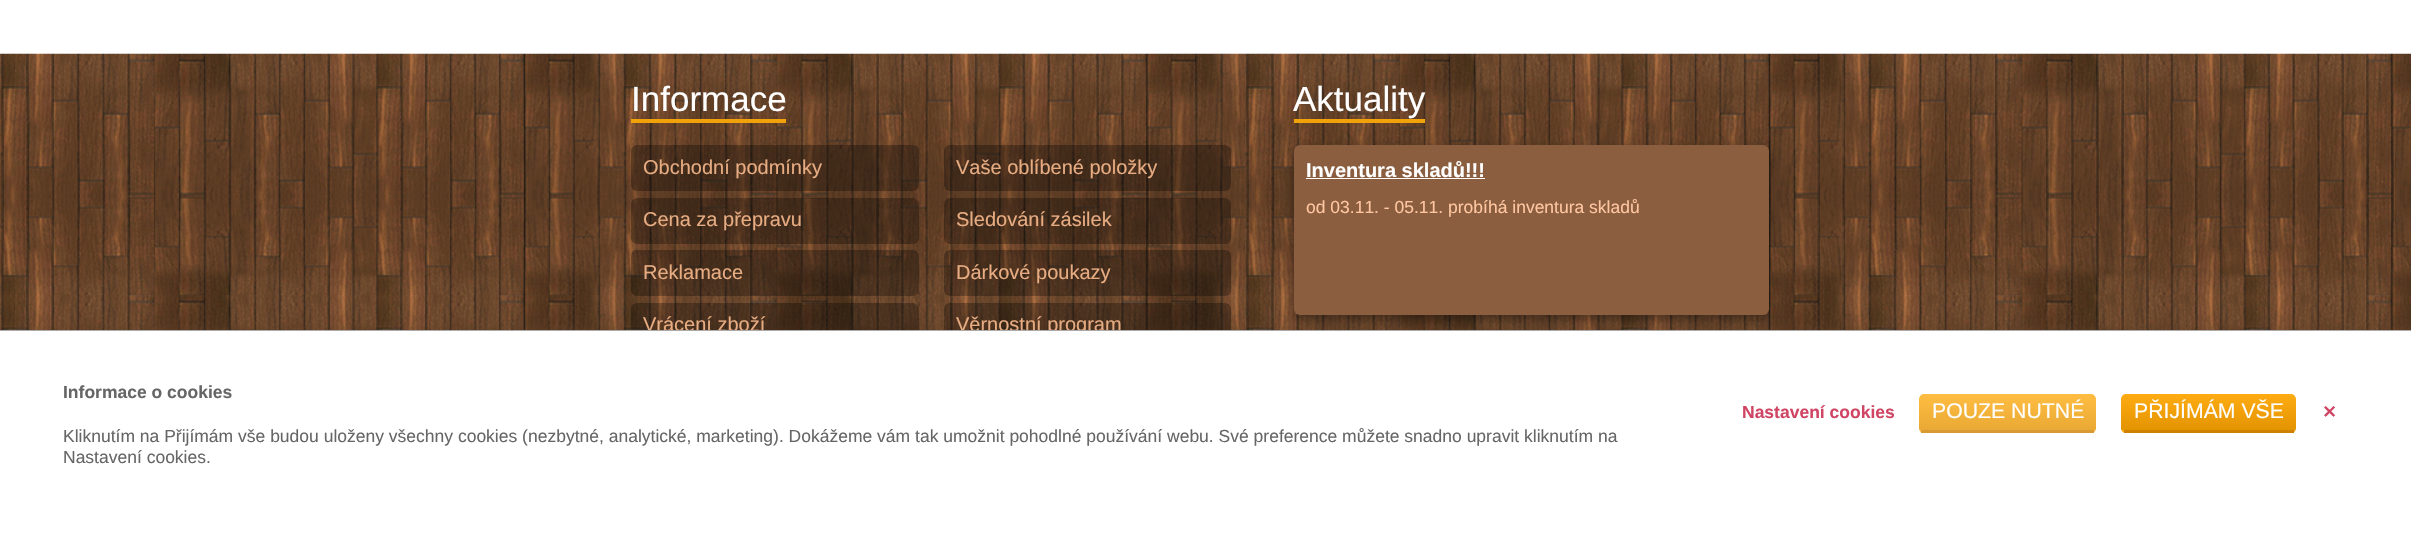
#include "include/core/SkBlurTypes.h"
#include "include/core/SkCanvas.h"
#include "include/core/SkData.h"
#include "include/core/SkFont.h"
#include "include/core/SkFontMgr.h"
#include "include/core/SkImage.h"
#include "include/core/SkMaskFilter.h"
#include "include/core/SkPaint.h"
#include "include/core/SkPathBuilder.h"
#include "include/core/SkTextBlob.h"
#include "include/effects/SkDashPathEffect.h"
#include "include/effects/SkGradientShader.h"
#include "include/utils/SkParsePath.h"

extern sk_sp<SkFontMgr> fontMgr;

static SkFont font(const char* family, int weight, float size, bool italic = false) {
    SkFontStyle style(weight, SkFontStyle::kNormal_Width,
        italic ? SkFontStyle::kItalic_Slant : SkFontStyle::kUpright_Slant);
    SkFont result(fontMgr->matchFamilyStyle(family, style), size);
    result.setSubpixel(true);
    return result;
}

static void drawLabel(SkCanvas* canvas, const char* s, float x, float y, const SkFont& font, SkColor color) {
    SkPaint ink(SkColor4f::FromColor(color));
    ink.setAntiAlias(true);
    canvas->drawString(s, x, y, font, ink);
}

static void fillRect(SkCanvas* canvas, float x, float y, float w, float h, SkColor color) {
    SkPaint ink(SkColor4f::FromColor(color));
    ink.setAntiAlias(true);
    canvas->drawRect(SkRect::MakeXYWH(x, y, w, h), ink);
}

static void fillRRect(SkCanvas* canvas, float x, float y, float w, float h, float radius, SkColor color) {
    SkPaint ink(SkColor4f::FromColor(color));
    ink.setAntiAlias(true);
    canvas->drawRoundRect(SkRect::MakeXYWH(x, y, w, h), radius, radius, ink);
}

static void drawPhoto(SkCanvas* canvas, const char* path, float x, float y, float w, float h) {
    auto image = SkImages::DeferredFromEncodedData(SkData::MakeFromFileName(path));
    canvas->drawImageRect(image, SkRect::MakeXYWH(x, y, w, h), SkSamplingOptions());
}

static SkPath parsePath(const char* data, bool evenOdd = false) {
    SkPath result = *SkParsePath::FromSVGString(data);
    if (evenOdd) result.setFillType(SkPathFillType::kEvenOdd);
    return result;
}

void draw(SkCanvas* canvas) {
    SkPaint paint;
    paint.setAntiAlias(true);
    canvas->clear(0xFFFFFFFF);
    drawPhoto(canvas, "assets/img1.png", 0, 53, 2411, 277);
    SkFont font1 = font("Liberation Sans", 400, 35);
    drawLabel(canvas, "Informace", 631, 111, font1, 0xFFFFFFFF);
    fillRect(canvas, 631, 119, 155, 4, 0xFFF1A10A);
    fillRRect(canvas, 631, 145, 288, 46, 6, 0x4D000000);
    SkFont font2 = font("Liberation Sans", 400, 20);
    drawLabel(canvas, "Obchodní podmínky", 643, 174, font2, 0xFFE7AC82);
    fillRRect(canvas, 631, 198, 288, 46, 6, 0x4D000000);
    drawLabel(canvas, "Cena za přepravu", 643, 226, font2, 0xFFE7AC82);
    fillRRect(canvas, 631, 250, 288, 46, 6, 0x4D000000);
    drawLabel(canvas, "Reklamace", 643, 279, font2, 0xFFE7AC82);
    fillRRect(canvas, 631, 303, 288, 45, 6, 0x4D000000);
    drawLabel(canvas, "Vrácení zboží", 643, 331, font2, 0xFFE7AC82);
    fillRRect(canvas, 944, 145, 287, 46, 6, 0x4D000000);
    drawLabel(canvas, "Vaše oblíbené položky", 956, 174, font2, 0xFFE7AC82);
    fillRRect(canvas, 944, 198, 287, 46, 6, 0x4D000000);
    drawLabel(canvas, "Sledování zásilek", 956, 226, font2, 0xFFE7AC82);
    fillRRect(canvas, 944, 250, 287, 46, 6, 0x4D000000);
    drawLabel(canvas, "Dárkové poukazy", 956, 279, font2, 0xFFE7AC82);
    fillRRect(canvas, 944, 303, 287, 45, 6, 0x4D000000);
    drawLabel(canvas, "Věrnostní program", 956, 331, font2, 0xFFE7AC82);
    drawLabel(canvas, "Aktuality", 1293, 111, font1, 0xFFFFFFFF);
    fillRect(canvas, 1294, 119, 131, 4, 0xFFF1A10A);
    paint.setColor(0x66000000);
    paint.setMaskFilter(SkMaskFilter::MakeBlur(kNormal_SkBlurStyle, 6));
    canvas->drawRoundRect(SkRect::MakeXYWH(1294, 150, 475, 170), 6, 6, paint);
    paint.setMaskFilter(nullptr);
    fillRRect(canvas, 1294, 145, 475, 170, 6, 0xFF8A5E3E);
    SkFont font3 = font("Liberation Sans", 700, 20);
    drawLabel(canvas, "Inventura skladů!!!", 1306, 177, font3, 0xFFFFFFFF);
    fillRect(canvas, 1306, 178, 179, 1, 0xFFFFFFFF);
    SkFont font4 = font("Liberation Sans", 400, 17.5f);
    drawLabel(canvas, "od 03.11. - 05.11. probíhá inventura skladů", 1306, 213, font4, 0xFFFFC6A1);
    fillRect(canvas, 631, 331, 1128, 17, 0xFFFFFFFF);
    fillRect(canvas, 0, 330, 2411, 1, 0xFFAAAAAA);
    SkFont font5 = font("Liberation Sans", 700, 17.5f);
    drawLabel(canvas, "Informace o cookies", 63, 398, font5, 0xFF666666);
    drawLabel(canvas, "Kliknutím na Přijímám vše budou uloženy všechny cookies (nezbytné, analytické, marketing). Dokážeme vám tak umožnit pohodlné používání webu. Své preference můžete snadno upravit kliknutím na", 63, 442, font4, 0xFF666666);
    drawLabel(canvas, "Nastavení cookies.", 63, 463, font4, 0xFF666666);
    drawLabel(canvas, "Nastavení cookies", 1742, 418, font5, 0xFFD04564);
    canvas->save();
    canvas->clipPath(parsePath("M1924 394H2091C2094 394 2096 396 2096 399V428C2096 431 2094 433 2091 433H1924C1921 433 1919 431 1919 428V399C1919 396 1921 394 1924 394Z"), true);
    {
        const SkColor colors[] = {0xFFFFBD42, 0xFFE9A934};
        const float stops[] = {0, 1};
        const SkPoint ends[] = {{2008, 394}, {2008, 430}};
        paint.setShader(SkGradientShader::MakeLinear(ends, colors, stops, 2, SkTileMode::kClamp));
        paint.setAlpha(255);
    }
    canvas->drawPath(parsePath("M1924 394H2091C2094 394 2096 396 2096 399V430H1919V399C1919 396 1921 394 1924 394Z"), paint);
    {
        const SkColor colors[] = {0xFFFFBD42, 0xFFE9A934};
        const float stops[] = {0, 1};
        const SkPoint ends[] = {{2008, 430}, {2008, 466}};
        paint.setShader(SkGradientShader::MakeLinear(ends, colors, stops, 2, SkTileMode::kClamp));
        paint.setAlpha(255);
    }
    canvas->drawRect(SkRect::MakeXYWH(1919, 430, 177, 2), paint);
    canvas->restore();
    fillRect(canvas, 1921, 430, 173, 3, 0xFFD99A34);
    SkFont font6 = font("Liberation Sans", 400, 21.25f);
    drawLabel(canvas, "POUZE NUTNÉ", 1932, 418, font6, 0xFFFFFFFF);
    canvas->save();
    canvas->clipPath(parsePath("M2126 394H2291C2294 394 2296 396 2296 399V428C2296 431 2294 433 2291 433H2126C2123 433 2121 431 2121 428V399C2121 396 2123 394 2126 394Z"), true);
    {
        const SkColor colors[] = {0xFFFFAC13, 0xFFE39401};
        const float stops[] = {0, 1};
        const SkPoint ends[] = {{2209, 394}, {2209, 430}};
        paint.setShader(SkGradientShader::MakeLinear(ends, colors, stops, 2, SkTileMode::kClamp));
        paint.setAlpha(255);
    }
    canvas->drawPath(parsePath("M2126 394H2291C2294 394 2296 396 2296 399V430H2121V399C2121 396 2123 394 2126 394Z"), paint);
    {
        const SkColor colors[] = {0xFFFFAC13, 0xFFE39401};
        const float stops[] = {0, 1};
        const SkPoint ends[] = {{2209, 430}, {2209, 466}};
        paint.setShader(SkGradientShader::MakeLinear(ends, colors, stops, 2, SkTileMode::kClamp));
        paint.setAlpha(255);
    }
    canvas->drawRect(SkRect::MakeXYWH(2121, 430, 175, 3), paint);
    canvas->restore();
    fillRect(canvas, 2124, 430, 170, 3, 0xFFCF8101);
    drawLabel(canvas, "PŘIJÍMÁM VŠE", 2134, 418, font6, 0xFFFFFFFF);
    SkFont font7 = font("DejaVu Sans", 700, 17.5f);
    drawLabel(canvas, "✕", 2322, 418, font7, 0xFFD04564);
}
